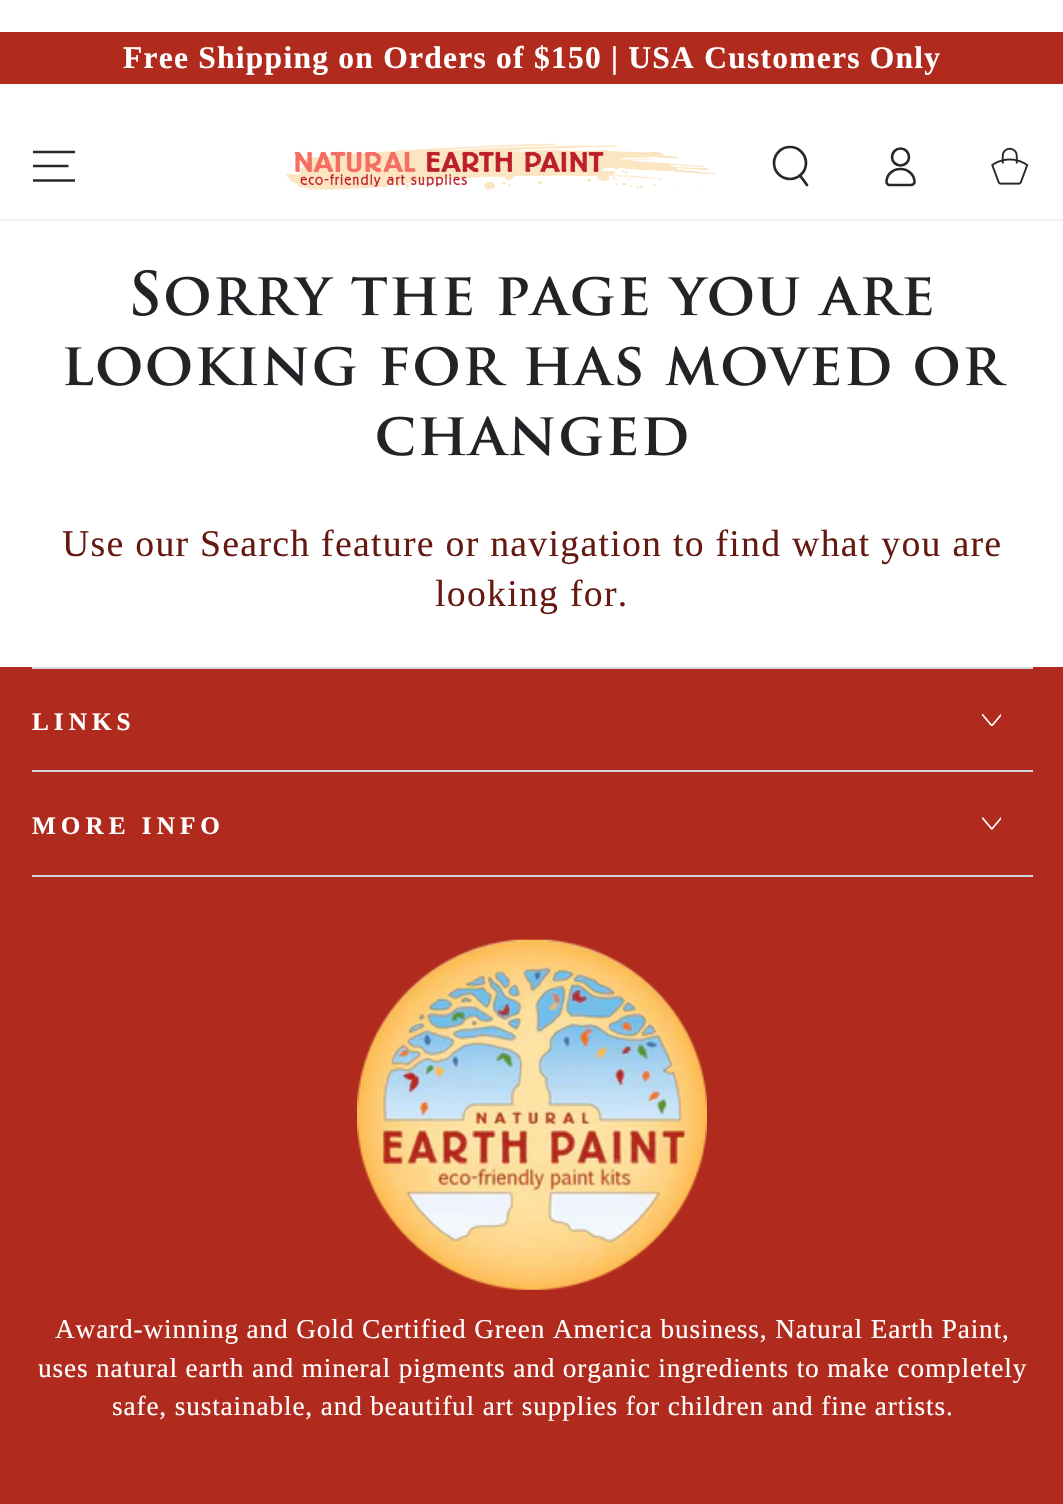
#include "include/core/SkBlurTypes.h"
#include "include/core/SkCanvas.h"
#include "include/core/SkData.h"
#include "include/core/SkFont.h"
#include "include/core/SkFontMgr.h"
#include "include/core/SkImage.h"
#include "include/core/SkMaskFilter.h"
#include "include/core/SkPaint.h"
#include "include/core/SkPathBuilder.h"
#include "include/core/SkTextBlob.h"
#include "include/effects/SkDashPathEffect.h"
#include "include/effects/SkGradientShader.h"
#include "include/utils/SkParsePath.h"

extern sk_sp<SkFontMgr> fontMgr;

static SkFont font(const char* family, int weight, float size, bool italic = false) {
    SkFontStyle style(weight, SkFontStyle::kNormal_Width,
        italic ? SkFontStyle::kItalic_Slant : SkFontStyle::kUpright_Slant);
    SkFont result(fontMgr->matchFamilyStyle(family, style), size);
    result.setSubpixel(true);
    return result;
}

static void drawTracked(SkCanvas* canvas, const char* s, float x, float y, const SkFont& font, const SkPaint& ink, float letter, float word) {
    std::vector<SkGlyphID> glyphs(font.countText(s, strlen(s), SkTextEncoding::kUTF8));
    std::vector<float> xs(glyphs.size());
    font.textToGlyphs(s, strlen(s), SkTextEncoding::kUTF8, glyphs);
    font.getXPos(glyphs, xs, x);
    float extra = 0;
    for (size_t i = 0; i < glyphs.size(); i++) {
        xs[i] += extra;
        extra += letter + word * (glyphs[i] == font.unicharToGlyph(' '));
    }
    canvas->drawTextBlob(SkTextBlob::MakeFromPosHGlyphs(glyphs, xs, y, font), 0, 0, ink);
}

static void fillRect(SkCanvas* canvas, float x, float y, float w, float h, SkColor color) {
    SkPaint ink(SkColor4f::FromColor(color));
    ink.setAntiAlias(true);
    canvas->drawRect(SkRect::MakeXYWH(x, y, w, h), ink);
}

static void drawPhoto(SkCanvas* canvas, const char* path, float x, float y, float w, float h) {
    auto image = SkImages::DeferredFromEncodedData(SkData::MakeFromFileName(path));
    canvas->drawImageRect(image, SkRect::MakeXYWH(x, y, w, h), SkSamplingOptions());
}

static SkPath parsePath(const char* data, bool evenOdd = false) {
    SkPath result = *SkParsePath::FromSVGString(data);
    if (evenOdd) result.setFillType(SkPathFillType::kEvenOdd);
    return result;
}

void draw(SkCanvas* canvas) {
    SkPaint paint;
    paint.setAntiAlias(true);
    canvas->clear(0xFFFFFFFF);
    fillRect(canvas, 0, 32, 1063, 52, 0xFFB02B1D);
    SkFont font1 = font("Liberation Serif", 700, 31.5f);
    paint.setColor(0xFFFFFFFF);
    drawTracked(canvas, "Free Shipping on Orders of $150 | USA Customers Only", 123, 68, font1, paint, 1.25f, 0);
    fillRect(canvas, 0, 219, 1063, 2, 0xFFF2F2F4);
    paint.setStroke(true);
    paint.setStrokeWidth(2.4f);
    paint.setColor(0xFF282828);
    canvas->drawPath(parsePath("M33 180.5H75M33 166H68.5M33 152H75"), paint);
    drawPhoto(canvas, "assets/img1.png", 286, 143, 430, 47);
    paint.setStrokeWidth(2.7f);
    canvas->drawCircle(790, 163, 16, paint);
    paint.setStrokeCap(SkPaint::kRound_Cap);
    canvas->drawPath(parsePath("M800 175.5L807 185"), paint);
    paint.setStrokeWidth(2.6f);
    paint.setStrokeCap(SkPaint::kButt_Cap);
    canvas->drawPath(parsePath("M900.5 169C892.5 169 886.5 174.5 886.5 182C886.5 183.5 888 185 889.5 185H911C913 185 914.5 183.5 914.5 182C914.5 174.5 908 169 900.5 169Z"), paint);
    canvas->drawCircle(900.5f, 157, 8.5f, paint);
    drawPhoto(canvas, "assets/img2.png", 991, 147, 38, 38);
    drawPhoto(canvas, "assets/img3.png", 133, 269, 799, 47);
    drawPhoto(canvas, "assets/img4.png", 64, 346, 943, 40);
    drawPhoto(canvas, "assets/img5.png", 377, 416, 310, 40);
    SkFont font2 = font("Liberation Serif", 400, 37.8f);
    paint.setStroke(false);
    paint.setColor(0xFF661911);
    drawTracked(canvas, "Use our Search feature or navigation to find what you are", 62, 556, font2, paint, 1.25f, 0);
    drawTracked(canvas, "looking for.", 435, 606, font2, paint, 1.25f, 0);
    fillRect(canvas, 0, 667, 1063, 837, 0xFFB02B1D);
    fillRect(canvas, 32, 667, 1001, 2, 0xFFD2D5D9);
    fillRect(canvas, 32, 770, 1001, 2, 0xFFD2D5D9);
    SkFont font3 = font("Liberation Serif", 700, 25.25f);
    paint.setColor(0xFFFFFFFF);
    drawTracked(canvas, "LINKS", 32, 730, font3, paint, 5, 0);
    drawPhoto(canvas, "assets/img6.png", 982, 714, 19, 12);
    fillRect(canvas, 32, 875, 1001, 2, 0xFFD2D5D9);
    drawTracked(canvas, "MORE INFO", 32, 834, font3, paint, 5, 0);
    drawPhoto(canvas, "assets/img7.png", 982, 817, 19, 13);
    drawPhoto(canvas, "assets/img8.png", 357, 939, 350, 351);
    SkFont font4 = font("Liberation Serif", 400, 27.3f);
    drawTracked(canvas, "Award-winning and Gold Certified Green America business, Natural Earth Paint,", 55, 1338, font4, paint, 0.85f, 0);
    drawTracked(canvas, "uses natural earth and mineral pigments and organic ingredients to make completely", 38, 1377, font4, paint, 0.85f, 0);
    drawTracked(canvas, "safe, sustainable, and beautiful art supplies for children and fine artists.", 112, 1415, font4, paint, 0.85f, 0);
}
